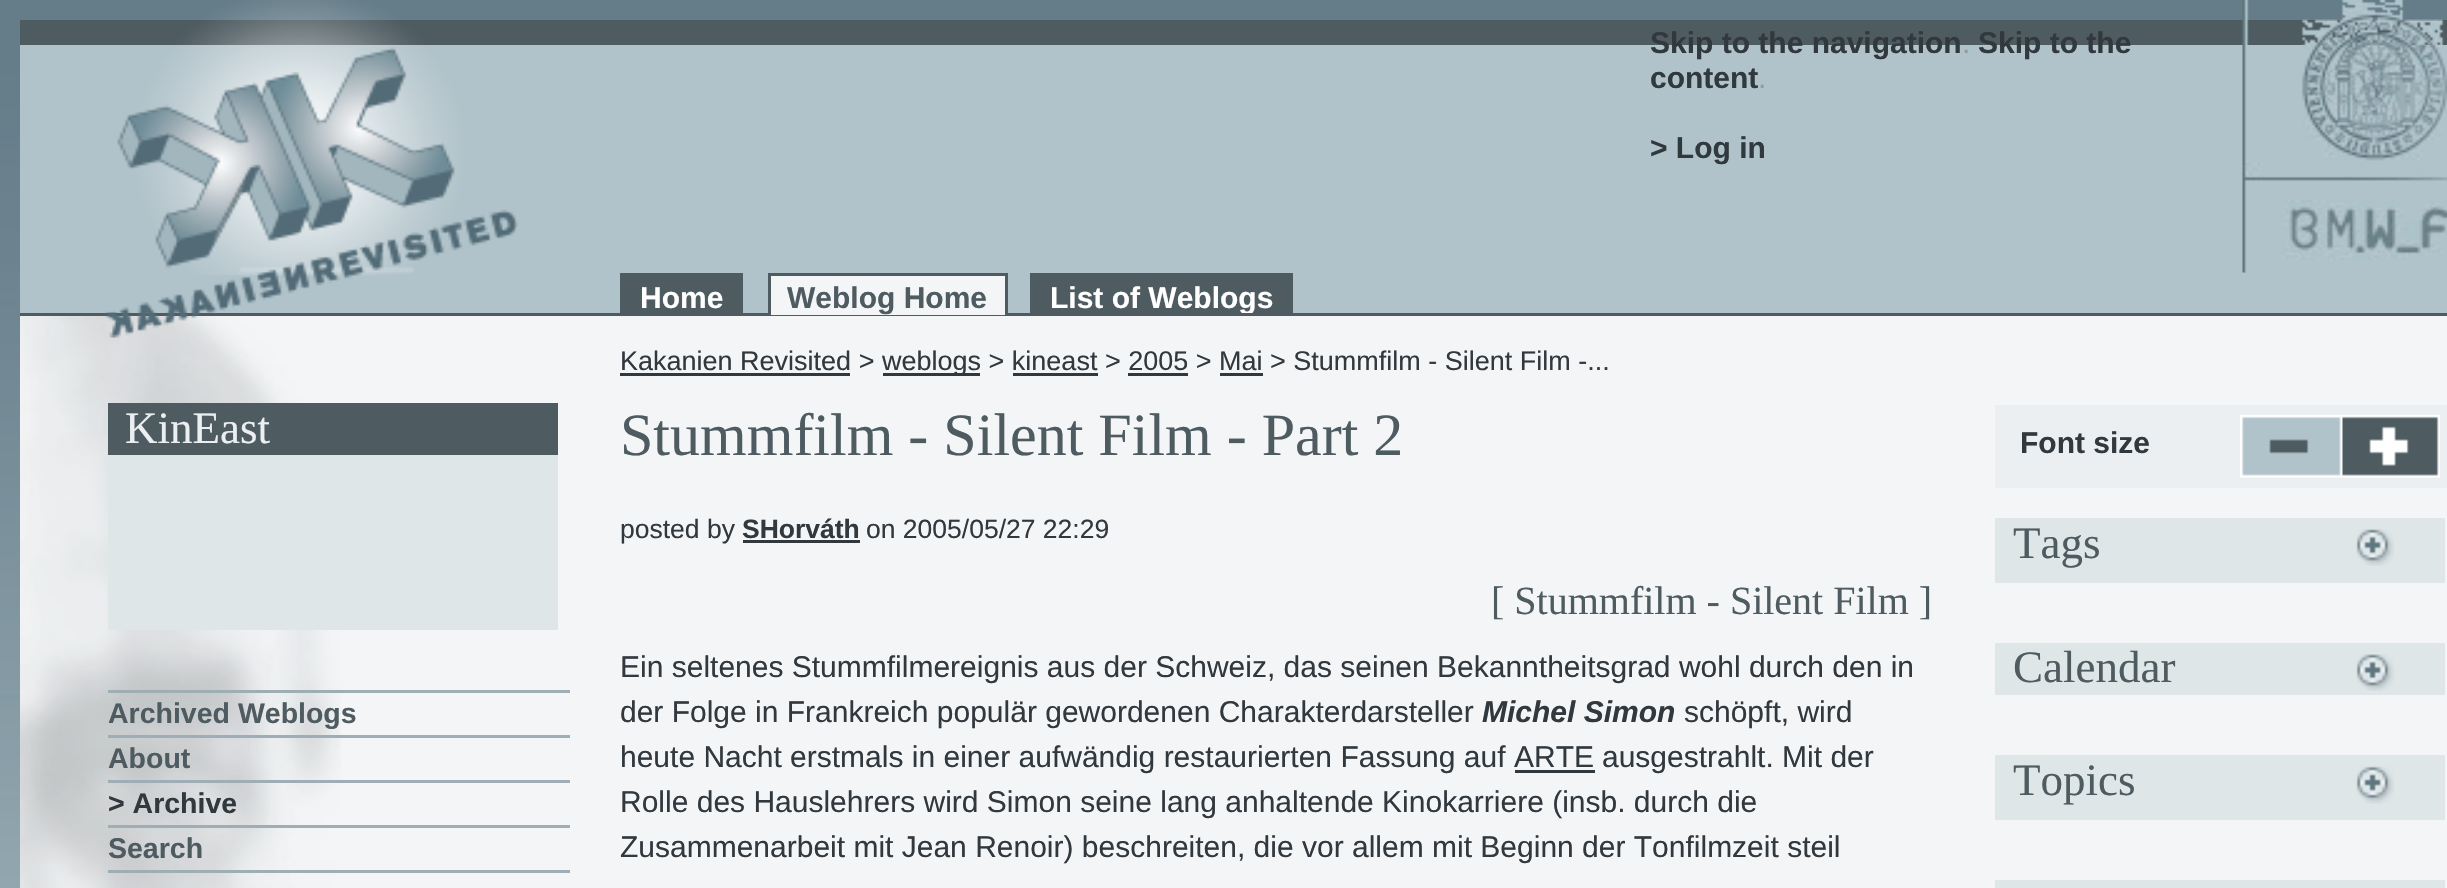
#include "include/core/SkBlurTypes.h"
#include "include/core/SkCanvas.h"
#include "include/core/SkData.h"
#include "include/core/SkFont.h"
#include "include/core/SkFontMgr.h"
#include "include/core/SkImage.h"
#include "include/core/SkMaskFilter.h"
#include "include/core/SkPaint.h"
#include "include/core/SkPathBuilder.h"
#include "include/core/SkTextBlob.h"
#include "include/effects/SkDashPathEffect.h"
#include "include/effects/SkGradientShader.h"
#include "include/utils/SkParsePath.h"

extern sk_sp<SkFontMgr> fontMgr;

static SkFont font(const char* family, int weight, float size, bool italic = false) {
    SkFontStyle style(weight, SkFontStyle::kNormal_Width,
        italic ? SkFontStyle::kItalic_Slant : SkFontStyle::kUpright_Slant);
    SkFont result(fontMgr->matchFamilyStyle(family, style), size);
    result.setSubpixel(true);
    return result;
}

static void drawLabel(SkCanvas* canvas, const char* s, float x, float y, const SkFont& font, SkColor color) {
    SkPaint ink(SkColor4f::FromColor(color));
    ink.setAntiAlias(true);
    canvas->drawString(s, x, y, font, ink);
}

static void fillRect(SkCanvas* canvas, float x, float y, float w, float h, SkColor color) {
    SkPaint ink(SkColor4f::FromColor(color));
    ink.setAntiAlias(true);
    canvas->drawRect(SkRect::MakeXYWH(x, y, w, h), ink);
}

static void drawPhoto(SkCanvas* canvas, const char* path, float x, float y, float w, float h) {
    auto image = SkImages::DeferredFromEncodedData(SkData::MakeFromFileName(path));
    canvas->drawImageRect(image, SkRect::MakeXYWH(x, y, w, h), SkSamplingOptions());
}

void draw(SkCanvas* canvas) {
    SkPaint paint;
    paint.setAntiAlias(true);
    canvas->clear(0xFFFFFFFF);
    drawPhoto(canvas, "assets/img1.png", 0, 0, 2447, 888);
    fillRect(canvas, 20, 45, 2427, 268, 0xFFB1C3CA);
    fillRect(canvas, 20, 20, 2427, 25, 0xFF4E5B61);
    fillRect(canvas, 620, 273, 123, 3, 0xFF4E5B61);
    fillRect(canvas, 740, 273, 3, 42, 0xFF4E5B61);
    fillRect(canvas, 620, 273, 3, 42, 0xFF4E5B61);
    fillRect(canvas, 1033, 276, 257, 37, 0xFF4E5B61);
    SkFont font1 = font("Liberation Sans", 700, 30);
    drawLabel(canvas, "List of Weblogs", 1050, 308, font1, 0xFFFFFFFF);
    fillRect(canvas, 1030, 273, 263, 3, 0xFF4E5B61);
    fillRect(canvas, 1290, 273, 3, 42, 0xFF4E5B61);
    fillRect(canvas, 1030, 273, 3, 42, 0xFF4E5B61);
    fillRect(canvas, 20, 313, 2427, 3, 0xFF4E5B61);
    fillRect(canvas, 341, 316, 2106, 572, 0xFFF3F5F6);
    drawPhoto(canvas, "assets/img4.png", 20, 316, 321, 572);
    drawPhoto(canvas, "assets/img2.png", 105, 0, 413, 338);
    drawLabel(canvas, "Skip to the navigation", 1650, 53, font1, 0xFF31383E);
    SkFont font2 = font("Liberation Sans", 400, 30);
    drawLabel(canvas, ".", 1962, 53, font2, 0xFF999999);
    drawLabel(canvas, "Skip to the", 1978, 53, font1, 0xFF31383E);
    drawLabel(canvas, "content", 1650, 88, font1, 0xFF31383E);
    drawLabel(canvas, ".", 1758, 88, font2, 0xFF999999);
    drawLabel(canvas, "> Log in", 1650, 158, font1, 0xFF31383E);
    drawPhoto(canvas, "assets/img3.png", 2242, 0, 205, 273);
    fillRect(canvas, 623, 276, 117, 37, 0xFF4E5B61);
    drawLabel(canvas, "Home", 640, 308, font1, 0xFFFFFFFF);
    fillRect(canvas, 771, 276, 234, 39, 0xFFF3F5F6);
    drawLabel(canvas, "Weblog Home", 787, 308, font1, 0xFF4E5B61);
    fillRect(canvas, 768, 273, 240, 3, 0xFF4E5B61);
    fillRect(canvas, 1005, 273, 3, 42, 0xFF4E5B61);
    fillRect(canvas, 768, 273, 3, 42, 0xFF4E5B61);
    fillRect(canvas, 108, 403, 450, 52, 0xFF4E5B61);
    SkFont font3 = font("Liberation Serif", 400, 45);
    drawLabel(canvas, "KinEast", 125, 443, font3, 0xFFEBEFF1);
    fillRect(canvas, 108, 455, 450, 175, 0xFFDEE6E8);
    fillRect(canvas, 108, 690, 462, 3, 0xFF9EAEB4);
    fillRect(canvas, 108, 735, 462, 3, 0xFF9EAEB4);
    SkFont font4 = font("Liberation Sans", 700, 28.5f);
    drawLabel(canvas, "Archived Weblogs", 108, 723, font4, 0xFF4E5B61);
    fillRect(canvas, 108, 780, 462, 3, 0xFF9EAEB4);
    drawLabel(canvas, "About", 108, 768, font4, 0xFF4E5B61);
    fillRect(canvas, 108, 825, 462, 3, 0xFF9EAEB4);
    drawLabel(canvas, "> Archive", 108, 813, font4, 0xFF31383E);
    fillRect(canvas, 108, 870, 462, 3, 0xFF9EAEB4);
    drawLabel(canvas, "Search", 108, 858, font4, 0xFF4E5B61);
    SkFont font5 = font("Liberation Sans", 400, 27);
    drawLabel(canvas, "Kakanien Revisited >", 620, 370, font5, 0xFF31383E);
    fillRect(canvas, 620, 373, 230, 3, 0xFF31383E);
    fillRect(canvas, 883, 373, 97, 3, 0xFF31383E);
    drawLabel(canvas, "weblogs > kineast > 2005 > Mai > Stummfilm - Silent Film -...", 882, 370, font5, 0xFF31383E);
    fillRect(canvas, 1013, 373, 85, 3, 0xFF31383E);
    fillRect(canvas, 1128, 373, 60, 3, 0xFF31383E);
    fillRect(canvas, 1220, 373, 43, 3, 0xFF31383E);
    SkFont font6 = font("Liberation Serif", 400, 60);
    drawLabel(canvas, "Stummfilm - Silent Film - Part 2", 620, 455, font6, 0xFF4E5B61);
    SkFont font7 = font("Liberation Sans", 400, 26.5f);
    drawLabel(canvas, "posted by", 620, 538, font7, 0xFF31383E);
    SkFont font8 = font("Liberation Sans", 700, 26.5f);
    drawLabel(canvas, "SHorváth", 742, 538, font8, 0xFF31383E);
    fillRect(canvas, 743, 540, 117, 3, 0xFF31383E);
    drawLabel(canvas, "on 2005/05/27 22:29", 866, 538, font7, 0xFF31383E);
    SkFont font9 = font("Liberation Serif", 400, 40);
    drawLabel(canvas, "[ Stummfilm - Silent Film ]", 1491, 614, font9, 0xFF4E5B61);
    drawLabel(canvas, "Ein seltenes Stummfilmereignis aus der Schweiz, das seinen Bekanntheitsgrad wohl durch den in", 620, 677, font2, 0xFF31383E);
    drawLabel(canvas, "der Folge in Frankreich populär gewordenen Charakterdarsteller", 620, 722, font2, 0xFF31383E);
    SkFont font10 = font("Liberation Sans", 700, 30, true);
    drawLabel(canvas, "Michel Simon", 1482, 722, font10, 0xFF31383E);
    drawLabel(canvas, "schöpft, wird", 1684, 722, font2, 0xFF31383E);
    drawLabel(canvas, "heute Nacht erstmals in einer aufwändig restaurierten Fassung auf", 620, 767, font2, 0xFF31383E);
    drawLabel(canvas, "ARTE", 1514, 767, font2, 0xFF31383E);
    fillRect(canvas, 1515, 770, 80, 3, 0xFF31383E);
    drawLabel(canvas, "ausgestrahlt. Mit der", 1602, 767, font2, 0xFF31383E);
    drawLabel(canvas, "Rolle des Hauslehrers wird Simon seine lang anhaltende Kinokarriere (insb. durch die", 620, 812, font2, 0xFF31383E);
    drawLabel(canvas, "Zusammenarbeit mit Jean Renoir) beschreiten, die vor allem mit Beginn der Tonfilmzeit steil", 620, 857, font2, 0xFF31383E);
    fillRect(canvas, 1995, 405, 452, 83, 0xFFEBEFF1);
    drawLabel(canvas, "Font size", 2020, 453, font1, 0xFF31383E);
    drawPhoto(canvas, "assets/img5.png", 2240, 415, 103, 63);
    drawPhoto(canvas, "assets/img6.png", 2342, 415, 98, 63);
    fillRect(canvas, 1995, 518, 450, 65, 0xFFDEE6E8);
    drawLabel(canvas, "Tags", 2013, 558, font3, 0xFF4E5B61);
    drawPhoto(canvas, "assets/img7.png", 2356, 529, 38, 37);
    fillRect(canvas, 1995, 643, 450, 52, 0xFFDEE6E8);
    drawLabel(canvas, "Calendar", 2013, 682, font3, 0xFF4E5B61);
    drawPhoto(canvas, "assets/img7.png", 2356, 654, 38, 37);
    fillRect(canvas, 1995, 755, 450, 65, 0xFFDEE6E8);
    drawLabel(canvas, "Topics", 2013, 795, font3, 0xFF4E5B61);
    drawPhoto(canvas, "assets/img8.png", 2356, 766, 38, 38);
    fillRect(canvas, 1995, 880, 450, 8, 0xFFDEE6E8);
}
